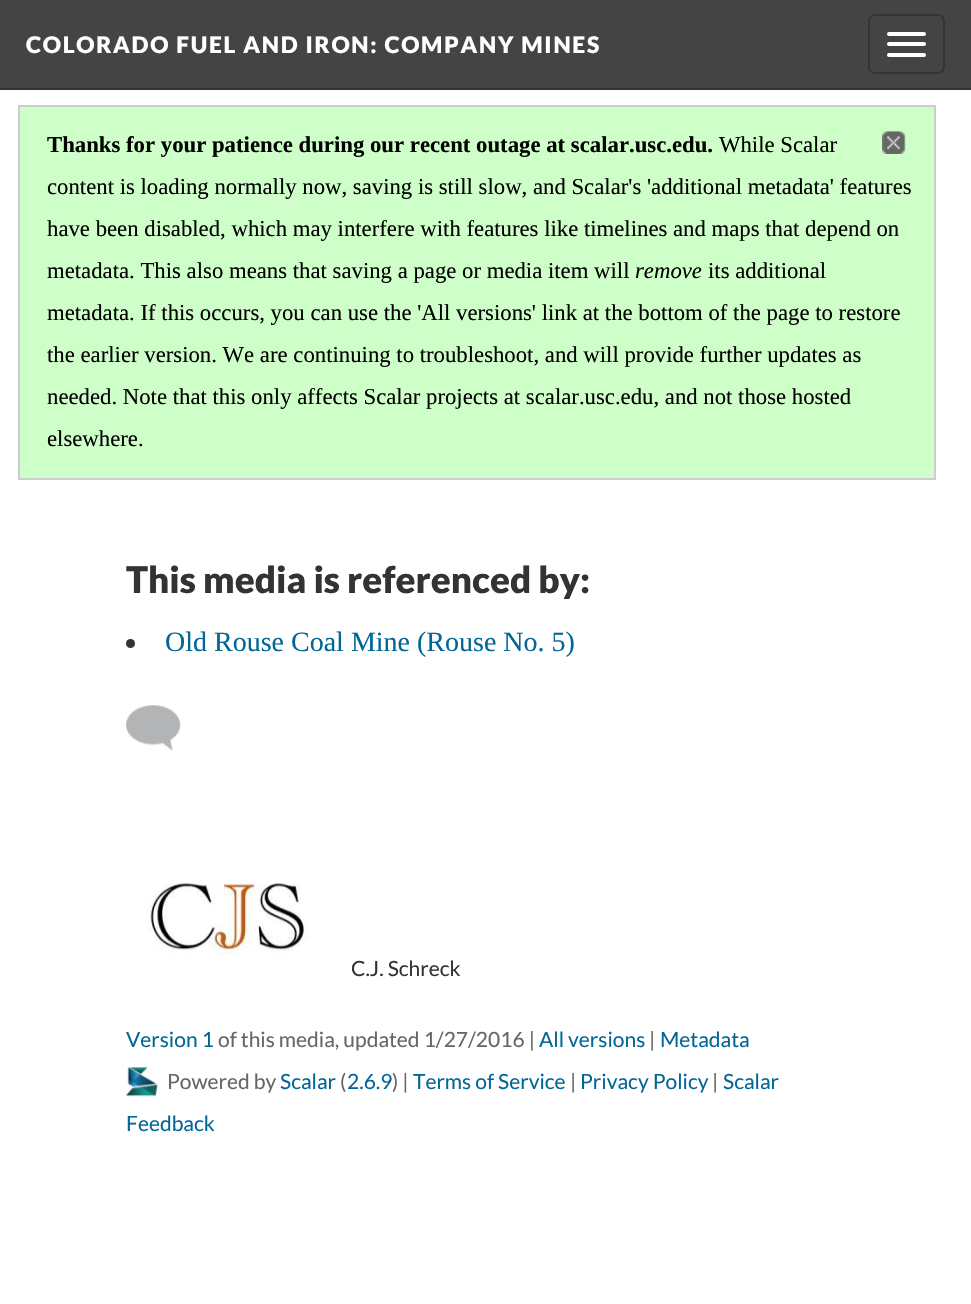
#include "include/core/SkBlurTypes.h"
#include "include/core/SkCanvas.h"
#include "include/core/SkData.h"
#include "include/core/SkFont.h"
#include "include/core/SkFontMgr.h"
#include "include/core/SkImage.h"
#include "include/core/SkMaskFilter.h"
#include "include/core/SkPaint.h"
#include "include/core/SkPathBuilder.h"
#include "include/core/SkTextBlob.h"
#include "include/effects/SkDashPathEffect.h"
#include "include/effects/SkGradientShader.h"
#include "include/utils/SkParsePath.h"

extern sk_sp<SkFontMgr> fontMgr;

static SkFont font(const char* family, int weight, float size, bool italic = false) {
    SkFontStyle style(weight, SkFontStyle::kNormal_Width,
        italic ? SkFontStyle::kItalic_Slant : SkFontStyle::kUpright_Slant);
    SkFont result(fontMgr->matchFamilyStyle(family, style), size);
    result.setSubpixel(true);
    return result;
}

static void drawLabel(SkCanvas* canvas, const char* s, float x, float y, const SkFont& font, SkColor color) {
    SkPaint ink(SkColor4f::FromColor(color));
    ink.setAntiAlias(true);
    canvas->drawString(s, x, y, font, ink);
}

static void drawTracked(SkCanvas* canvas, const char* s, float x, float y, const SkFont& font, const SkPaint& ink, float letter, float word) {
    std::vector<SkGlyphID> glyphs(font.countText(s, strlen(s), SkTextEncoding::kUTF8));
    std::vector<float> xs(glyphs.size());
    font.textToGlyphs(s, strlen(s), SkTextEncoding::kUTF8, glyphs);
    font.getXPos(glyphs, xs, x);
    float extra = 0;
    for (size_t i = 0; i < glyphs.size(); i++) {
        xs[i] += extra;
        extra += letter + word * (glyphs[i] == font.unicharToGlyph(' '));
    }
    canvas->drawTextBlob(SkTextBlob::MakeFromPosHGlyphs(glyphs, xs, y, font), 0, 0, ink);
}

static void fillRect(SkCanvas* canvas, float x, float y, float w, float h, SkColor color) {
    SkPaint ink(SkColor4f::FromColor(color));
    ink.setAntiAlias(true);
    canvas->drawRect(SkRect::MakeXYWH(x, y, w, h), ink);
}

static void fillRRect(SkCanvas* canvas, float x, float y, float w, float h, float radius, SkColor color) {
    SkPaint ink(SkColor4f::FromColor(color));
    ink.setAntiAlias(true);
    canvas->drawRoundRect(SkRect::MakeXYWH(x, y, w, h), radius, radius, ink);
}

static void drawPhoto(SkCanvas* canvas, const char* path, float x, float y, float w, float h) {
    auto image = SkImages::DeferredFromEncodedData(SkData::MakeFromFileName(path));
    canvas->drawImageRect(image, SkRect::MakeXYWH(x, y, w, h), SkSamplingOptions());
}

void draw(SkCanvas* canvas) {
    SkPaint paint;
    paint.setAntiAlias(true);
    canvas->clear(0xFFFFFFFF);
    fillRect(canvas, 0, 0, 971, 88, 0xFF444444);
    fillRect(canvas, 0, 88, 971, 2, 0xFF333333);
    SkFont font1 = font("Lato", 900, 22.75f);
    paint.setColor(0xFFFFFFFF);
    drawTracked(canvas, "COLORADO FUEL AND IRON: COMPANY MINES", 26, 53, font1, paint, 1.75f, 0);
    paint.setStroke(true);
    paint.setStrokeWidth(2);
    paint.setColor(0xFF333333);
    canvas->drawRoundRect(SkRect::MakeXYWH(869, 15, 75, 58), 6, 6, paint);
    fillRRect(canvas, 887, 32, 39, 4, 2, 0xFFFFFFFF);
    fillRRect(canvas, 887, 42, 39, 4, 2, 0xFFFFFFFF);
    fillRRect(canvas, 887, 53, 39, 4, 2, 0xFFFFFFFF);
    paint.setStroke(false);
    paint.setColor(0xFFCEFFC8);
    canvas->drawRect(SkRect::MakeXYWH(19, 106, 916, 373), paint);
    paint.setStroke(true);
    paint.setColor(0xFFCCCCCC);
    canvas->drawRect(SkRect::MakeXYWH(19, 106, 916, 373), paint);
    SkFont font2 = font("Liberation Serif", 700, 22.75f);
    drawLabel(canvas, "Thanks for your patience during our recent outage at scalar.usc.edu.", 47, 152, font2, 0xFF000000);
    SkFont font3 = font("Liberation Serif", 400, 22.75f);
    drawLabel(canvas, "While Scalar", 719, 152, font3, 0xFF000000);
    drawPhoto(canvas, "assets/img1.png", 882, 131, 24, 23);
    drawLabel(canvas, "content is loading normally now, saving is still slow, and Scalar's 'additional metadata' features", 47, 194, font3, 0xFF000000);
    drawLabel(canvas, "have been disabled, which may interfere with features like timelines and maps that depend on", 47, 236, font3, 0xFF000000);
    drawLabel(canvas, "metadata. This also means that saving a page or media item will", 47, 278, font3, 0xFF000000);
    SkFont font4 = font("Liberation Serif", 400, 22.75f, true);
    drawLabel(canvas, "remove", 635, 278, font4, 0xFF000000);
    drawLabel(canvas, "its additional", 708, 278, font3, 0xFF000000);
    drawLabel(canvas, "metadata. If this occurs, you can use the 'All versions' link at the bottom of the page to restore", 47, 320, font3, 0xFF000000);
    drawLabel(canvas, "the earlier version. We are continuing to troubleshoot, and will provide further updates as", 47, 362, font3, 0xFF000000);
    drawLabel(canvas, "needed. Note that this only affects Scalar projects at scalar.usc.edu, and not those hosted", 47, 404, font3, 0xFF000000);
    drawLabel(canvas, "elsewhere.", 47, 446, font3, 0xFF000000);
    SkFont font5 = font("Lato", 900, 36.75f);
    drawLabel(canvas, "This media is referenced by:", 126, 593, font5, 0xFF333333);
    paint.setStroke(false);
    paint.setColor(0xFF333333);
    canvas->drawCircle(130.5f, 643.5f, 4.5f, paint);
    SkFont font6 = font("Liberation Serif", 400, 28);
    drawLabel(canvas, "Old Rouse Coal Mine (Rouse No. 5)", 165, 651, font6, 0xFF026697);
    drawPhoto(canvas, "assets/img2.png", 126, 705, 55, 46);
    drawPhoto(canvas, "assets/img3.png", 147, 883, 161, 71);
    SkFont font7 = font("Lato", 400, 21);
    drawLabel(canvas, "C.J. Schreck", 351, 976, font7, 0xFF333333);
    drawLabel(canvas, "Version 1", 126, 1047, font7, 0xFF026697);
    drawLabel(canvas, "of this media, updated 1/27/2016 |", 218, 1047, font7, 0xFF666666);
    drawLabel(canvas, "All versions", 539, 1047, font7, 0xFF026697);
    drawLabel(canvas, "|", 649, 1047, font7, 0xFF666666);
    drawLabel(canvas, "Metadata", 660, 1047, font7, 0xFF026697);
    drawPhoto(canvas, "assets/img4.png", 126, 1067, 32, 30);
    drawLabel(canvas, "Powered by", 167, 1089, font7, 0xFF666666);
    drawLabel(canvas, "Scalar", 280, 1089, font7, 0xFF026697);
    drawLabel(canvas, "(", 340, 1089, font7, 0xFF666666);
    drawLabel(canvas, "2.6.9", 347, 1089, font7, 0xFF026697);
    drawLabel(canvas, ") |", 392, 1089, font7, 0xFF666666);
    drawLabel(canvas, "Terms of Service", 413, 1089, font7, 0xFF026697);
    drawLabel(canvas, "|", 570, 1089, font7, 0xFF666666);
    drawLabel(canvas, "Privacy Policy", 580, 1089, font7, 0xFF026697);
    drawLabel(canvas, "|", 712, 1089, font7, 0xFF666666);
    drawLabel(canvas, "Scalar", 723, 1089, font7, 0xFF026697);
    drawLabel(canvas, "Feedback", 126, 1131, font7, 0xFF026697);
}
